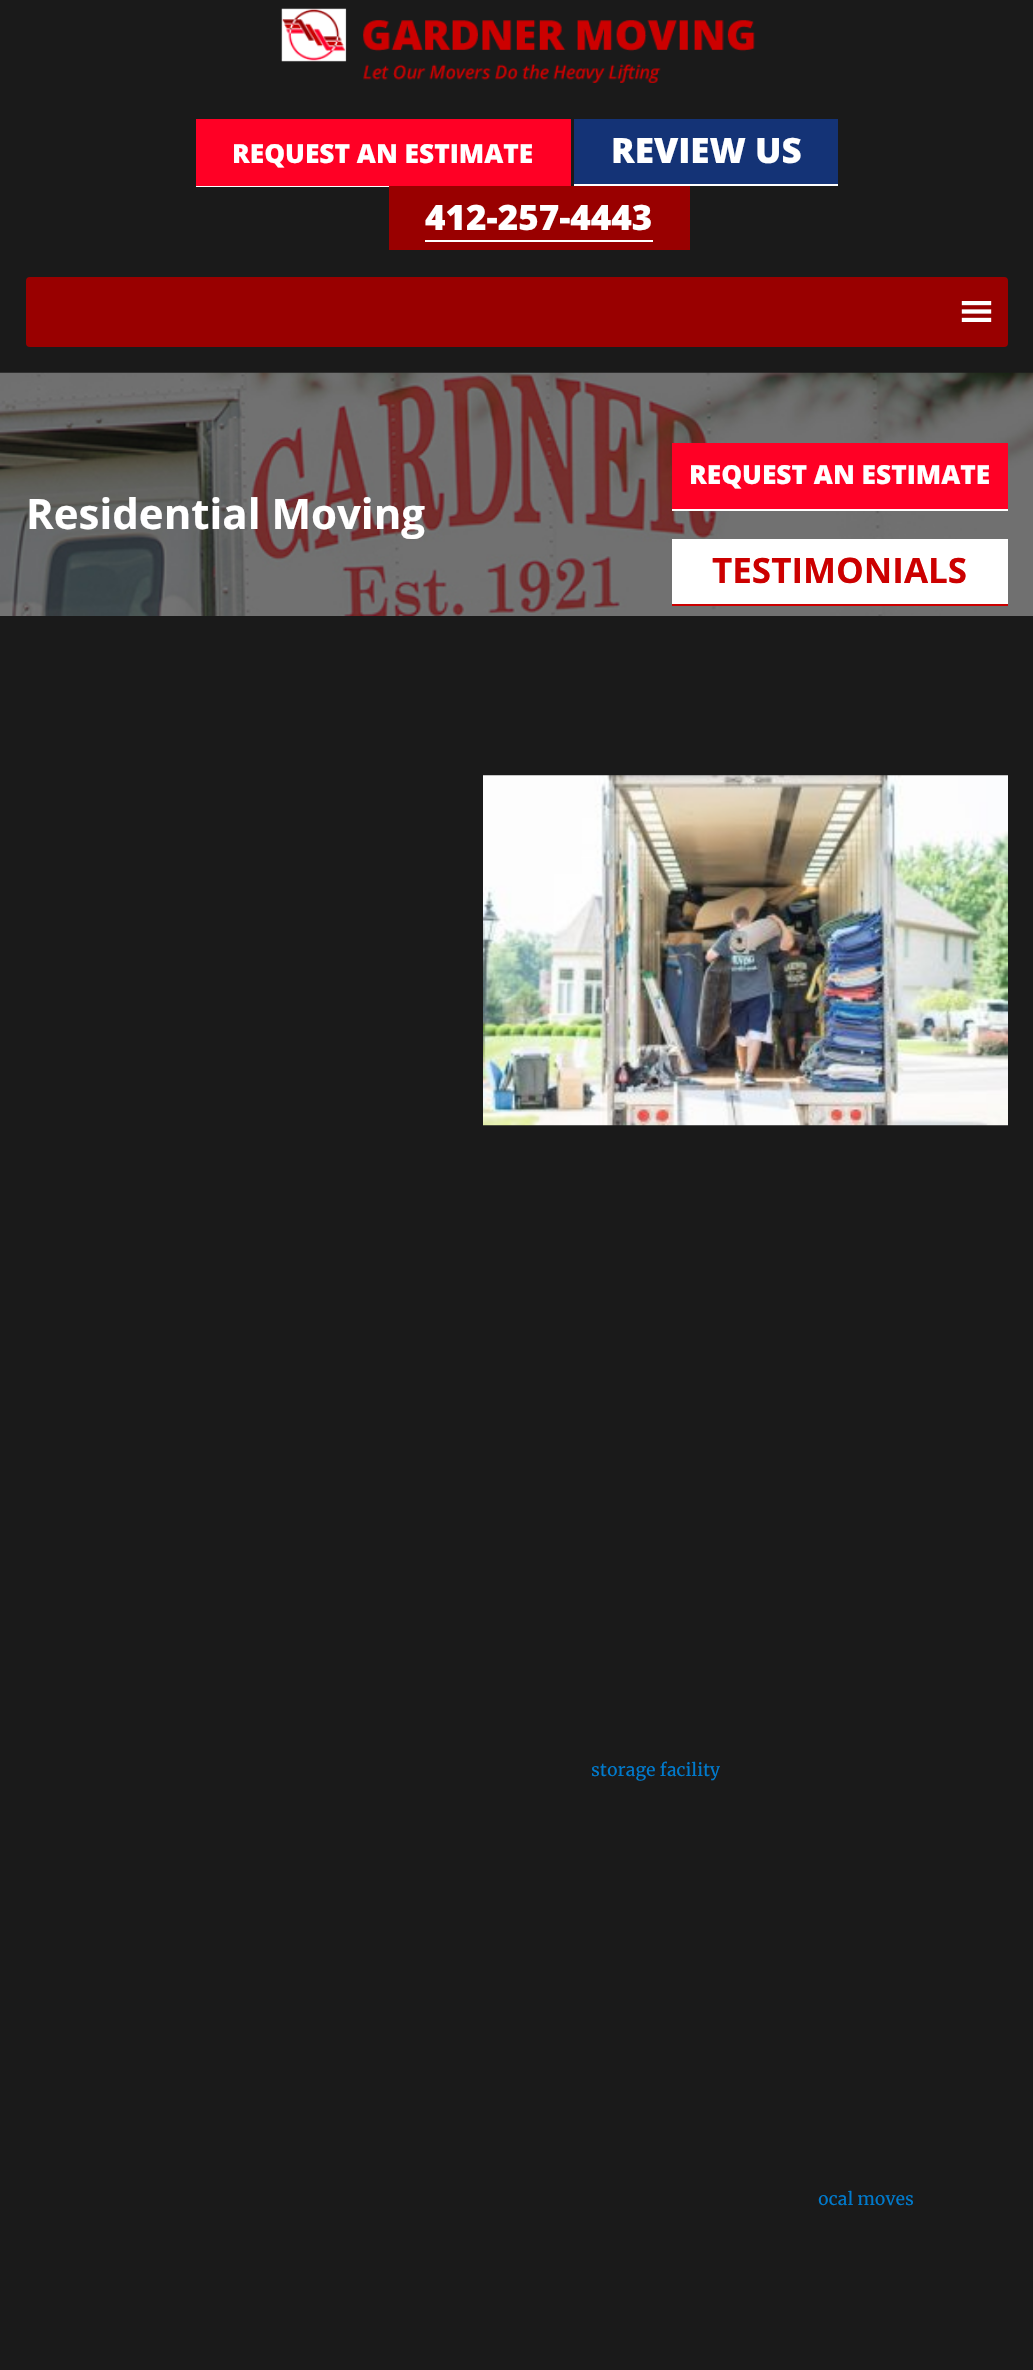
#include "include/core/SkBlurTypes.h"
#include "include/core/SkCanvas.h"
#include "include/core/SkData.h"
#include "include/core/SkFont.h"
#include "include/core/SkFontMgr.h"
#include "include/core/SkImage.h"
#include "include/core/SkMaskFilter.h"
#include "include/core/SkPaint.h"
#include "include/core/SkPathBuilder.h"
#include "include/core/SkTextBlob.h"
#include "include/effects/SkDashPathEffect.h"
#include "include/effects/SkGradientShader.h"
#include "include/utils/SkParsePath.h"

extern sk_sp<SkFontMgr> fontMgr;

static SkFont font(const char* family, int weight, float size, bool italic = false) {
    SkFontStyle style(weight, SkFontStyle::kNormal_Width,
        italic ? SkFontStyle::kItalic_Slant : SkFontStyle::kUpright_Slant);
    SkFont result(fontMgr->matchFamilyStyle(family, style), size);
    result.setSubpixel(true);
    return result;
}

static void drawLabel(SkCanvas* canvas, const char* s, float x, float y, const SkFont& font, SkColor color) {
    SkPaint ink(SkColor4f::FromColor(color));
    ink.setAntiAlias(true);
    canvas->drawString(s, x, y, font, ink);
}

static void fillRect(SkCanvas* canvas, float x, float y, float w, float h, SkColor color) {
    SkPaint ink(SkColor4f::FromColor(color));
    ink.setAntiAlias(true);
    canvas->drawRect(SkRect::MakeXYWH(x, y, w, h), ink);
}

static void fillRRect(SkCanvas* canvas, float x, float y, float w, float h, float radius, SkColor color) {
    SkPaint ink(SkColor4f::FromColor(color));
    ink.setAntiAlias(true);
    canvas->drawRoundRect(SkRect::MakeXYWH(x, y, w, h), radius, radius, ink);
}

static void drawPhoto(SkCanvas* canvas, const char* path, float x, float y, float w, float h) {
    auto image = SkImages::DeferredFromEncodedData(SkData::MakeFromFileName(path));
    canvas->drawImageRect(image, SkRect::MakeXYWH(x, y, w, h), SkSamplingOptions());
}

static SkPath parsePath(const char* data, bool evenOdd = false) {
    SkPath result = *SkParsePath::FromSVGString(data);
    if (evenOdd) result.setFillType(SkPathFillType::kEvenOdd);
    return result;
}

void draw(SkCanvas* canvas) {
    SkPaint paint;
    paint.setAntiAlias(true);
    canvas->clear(0xFF1A1A1A);
    drawPhoto(canvas, "assets/img1.png", 281, 8, 474, 75);
    paint.setColor(0xFFFFFFFF);
    canvas->drawPath(parsePath("M196 186V187H571V121H570V186Z"), paint);
    fillRect(canvas, 196, 119, 375, 67, 0xFFFF0025);
    SkFont font1 = font("Open Sans", 800, 26.25f);
    drawLabel(canvas, "REQUEST AN ESTIMATE", 232, 163, font1, 0xFFFFFFFF);
    fillRect(canvas, 574, 184, 264, 2, 0xFFFFFFFF);
    fillRect(canvas, 574, 119, 264, 65, 0xFF143376);
    SkFont font2 = font("Open Sans", 800, 35);
    drawLabel(canvas, "REVIEW US", 611, 163, font2, 0xFFFFFFFF);
    fillRect(canvas, 389, 186, 301, 64, 0xFF990000);
    drawLabel(canvas, "412-257-4443", 425, 230, font2, 0xFFFFFFFF);
    canvas->drawPath(parsePath("M425 194V242H653V194V240H425Z"), paint);
    fillRRect(canvas, 26, 277, 982, 70, 4, 0xFF990000);
    drawPhoto(canvas, "assets/img2.png", 961, 301, 31, 21);
    drawPhoto(canvas, "assets/img3.png", 0, 372, 1033, 244);
    SkFont font3 = font("Open Sans", 700, 42);
    drawLabel(canvas, "Residential Moving", 26, 529, font3, 0xFFFFFFFF);
    fillRect(canvas, 672, 509, 336, 2, 0xFFFFFFFF);
    fillRect(canvas, 672, 443, 336, 66, 0xFFFF0025);
    drawLabel(canvas, "REQUEST AN ESTIMATE", 689, 484, font1, 0xFFFFFFFF);
    fillRect(canvas, 672, 604, 336, 2, 0xFFCC0000);
    fillRect(canvas, 672, 539, 336, 65, 0xFFFFFFFF);
    SkFont font4 = font("Open Sans", 700, 35);
    drawLabel(canvas, "TESTIMONIALS", 712, 583, font4, 0xFFCC0000);
    drawPhoto(canvas, "assets/img4.png", 483, 775, 525, 351);
    SkFont font5 = font("Merriweather", 400, 17.5f);
    drawLabel(canvas, "storage facility", 591, 1776, font5, 0xFF007ACC);
    drawLabel(canvas, "ocal moves", 818, 2205, font5, 0xFF007ACC);
}
